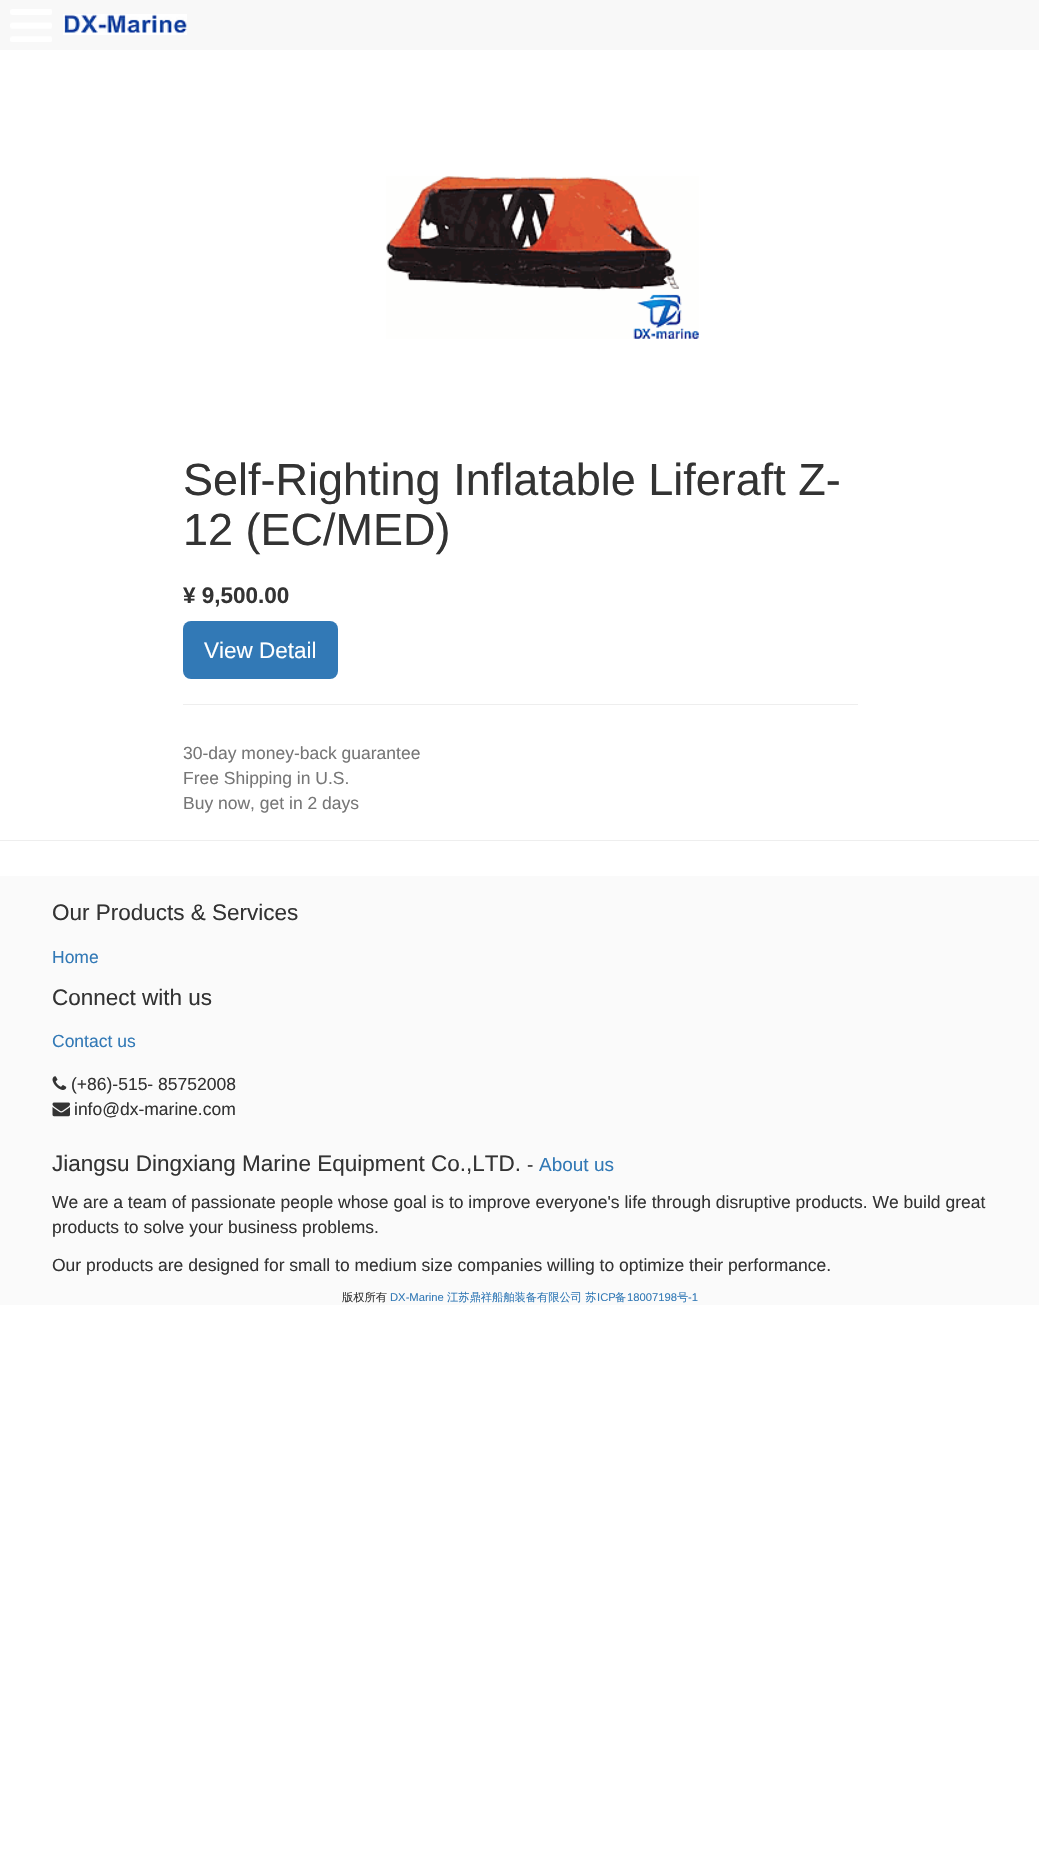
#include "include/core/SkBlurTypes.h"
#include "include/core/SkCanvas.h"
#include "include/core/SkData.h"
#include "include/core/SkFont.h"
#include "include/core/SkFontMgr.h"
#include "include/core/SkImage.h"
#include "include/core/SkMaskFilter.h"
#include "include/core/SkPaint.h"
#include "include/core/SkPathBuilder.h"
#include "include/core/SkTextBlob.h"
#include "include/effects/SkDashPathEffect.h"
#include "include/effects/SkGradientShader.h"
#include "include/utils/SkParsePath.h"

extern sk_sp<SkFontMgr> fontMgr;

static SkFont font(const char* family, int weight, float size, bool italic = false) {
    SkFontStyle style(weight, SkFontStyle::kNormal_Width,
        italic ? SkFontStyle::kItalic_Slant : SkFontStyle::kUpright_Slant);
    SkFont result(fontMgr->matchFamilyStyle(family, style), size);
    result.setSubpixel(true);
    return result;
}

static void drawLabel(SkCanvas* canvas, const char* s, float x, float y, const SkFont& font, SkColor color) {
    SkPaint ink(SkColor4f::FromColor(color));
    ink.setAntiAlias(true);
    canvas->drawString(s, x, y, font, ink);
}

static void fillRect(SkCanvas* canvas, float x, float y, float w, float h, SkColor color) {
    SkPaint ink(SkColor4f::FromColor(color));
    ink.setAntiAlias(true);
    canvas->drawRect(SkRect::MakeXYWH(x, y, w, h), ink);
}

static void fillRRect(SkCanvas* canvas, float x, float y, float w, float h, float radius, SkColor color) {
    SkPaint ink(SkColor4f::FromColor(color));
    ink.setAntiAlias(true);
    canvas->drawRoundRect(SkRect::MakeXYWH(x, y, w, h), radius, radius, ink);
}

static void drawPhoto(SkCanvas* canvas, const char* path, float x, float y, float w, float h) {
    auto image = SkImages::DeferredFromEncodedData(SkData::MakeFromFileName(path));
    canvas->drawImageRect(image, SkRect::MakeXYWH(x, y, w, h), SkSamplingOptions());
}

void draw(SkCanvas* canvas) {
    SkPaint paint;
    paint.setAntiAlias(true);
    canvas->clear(0xFFFFFFFF);
    fillRect(canvas, 0, 0, 1039, 50, 0xFFF8F8F8);
    drawPhoto(canvas, "assets/img1.png", 10, 9, 42, 33);
    drawPhoto(canvas, "assets/img2.png", 63, 14, 124, 21);
    drawPhoto(canvas, "assets/img3.png", 386, 176, 313, 163);
    SkFont font1 = font("Liberation Sans", 400, 45);
    drawLabel(canvas, "Self-Righting Inflatable Liferaft Z-", 183, 495, font1, 0xFF333333);
    drawLabel(canvas, "12 (EC/MED)", 183, 545, font1, 0xFF333333);
    SkFont font2 = font("Liberation Sans", 700, 22.5f);
    drawLabel(canvas, "¥ 9,500.00", 183, 603, font2, 0xFF333333);
    fillRRect(canvas, 183, 621, 155, 58, 8, 0xFF3279B6);
    SkFont font3 = font("Liberation Sans", 400, 22.5f);
    drawLabel(canvas, "View Detail", 204, 658, font3, 0xFFFFFFFF);
    fillRect(canvas, 183, 704, 675, 1, 0xFFEEEEEE);
    SkFont font4 = font("Liberation Sans", 400, 17.5f);
    drawLabel(canvas, "30-day money-back guarantee", 183, 759, font4, 0xFF777777);
    drawLabel(canvas, "Free Shipping in U.S.", 183, 784, font4, 0xFF777777);
    drawLabel(canvas, "Buy now, get in 2 days", 183, 809, font4, 0xFF777777);
    fillRect(canvas, 0, 840, 1039, 1, 0xFFEEEEEE);
    fillRect(canvas, 0, 876, 1039, 429, 0xFFFAFAFA);
    drawLabel(canvas, "Our Products & Services", 52, 920, font3, 0xFF333333);
    drawLabel(canvas, "Home", 52, 963, font4, 0xFF3279B6);
    drawLabel(canvas, "Connect with us", 52, 1005, font3, 0xFF333333);
    drawLabel(canvas, "Contact us", 52, 1047, font4, 0xFF3279B6);
    drawPhoto(canvas, "assets/img4.png", 52, 1076, 15, 14);
    drawLabel(canvas, "(+86)-515- 85752008", 71, 1090, font4, 0xFF333333);
    drawPhoto(canvas, "assets/img5.png", 52, 1102, 18, 15);
    drawLabel(canvas, "info@dx-marine.com", 74, 1115, font4, 0xFF333333);
    drawLabel(canvas, "Jiangsu Dingxiang Marine Equipment Co.,LTD.", 52, 1171, font3, 0xFF333333);
    SkFont font5 = font("Liberation Sans", 400, 19);
    drawLabel(canvas, "-", 527, 1171, font5, 0xFF333333);
    drawLabel(canvas, "About us", 539, 1171, font5, 0xFF3279B6);
    drawLabel(canvas, "We are a team of passionate people whose goal is to improve everyone's life through disruptive products. We build great", 52, 1208, font4, 0xFF333333);
    drawLabel(canvas, "products to solve your business problems.", 52, 1233, font4, 0xFF333333);
    drawLabel(canvas, "Our products are designed for small to medium size companies willing to optimize their performance.", 52, 1271, font4, 0xFF333333);
    SkFont font6 = font("WenQuanYi Zen Hei", 500, 11.25f);
    drawLabel(canvas, "版权所有", 342, 1301, font6, 0xFF333333);
    SkFont font7 = font("Liberation Sans", 400, 11.25f);
    drawLabel(canvas, "DX-Marine", 390, 1301, font7, 0xFF3279B6);
    drawLabel(canvas, "江苏鼎祥船舶装备有限公司 苏", 447, 1301, font6, 0xFF3279B6);
    drawLabel(canvas, "ICP", 597, 1301, font7, 0xFF3279B6);
    drawLabel(canvas, "备", 615, 1301, font6, 0xFF3279B6);
    drawLabel(canvas, "18007198", 627, 1301, font7, 0xFF3279B6);
    drawLabel(canvas, "号", 677, 1301, font6, 0xFF3279B6);
    drawLabel(canvas, "-1", 688, 1301, font7, 0xFF3279B6);
}
